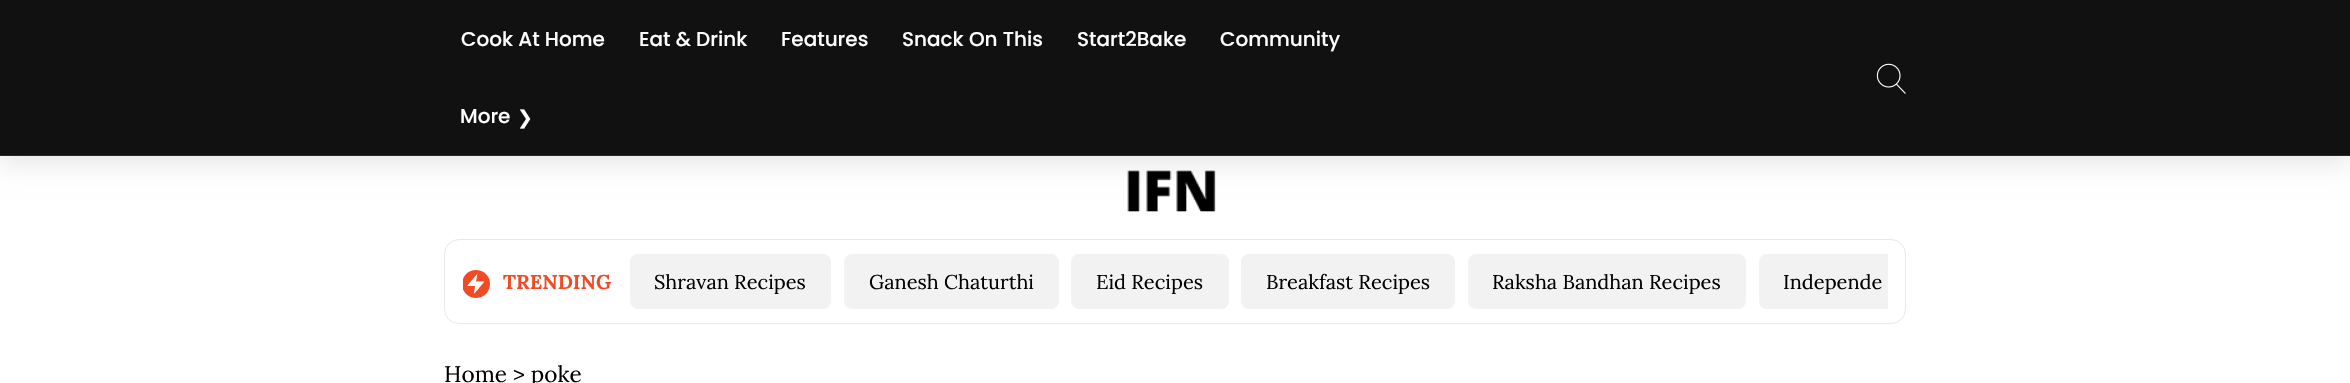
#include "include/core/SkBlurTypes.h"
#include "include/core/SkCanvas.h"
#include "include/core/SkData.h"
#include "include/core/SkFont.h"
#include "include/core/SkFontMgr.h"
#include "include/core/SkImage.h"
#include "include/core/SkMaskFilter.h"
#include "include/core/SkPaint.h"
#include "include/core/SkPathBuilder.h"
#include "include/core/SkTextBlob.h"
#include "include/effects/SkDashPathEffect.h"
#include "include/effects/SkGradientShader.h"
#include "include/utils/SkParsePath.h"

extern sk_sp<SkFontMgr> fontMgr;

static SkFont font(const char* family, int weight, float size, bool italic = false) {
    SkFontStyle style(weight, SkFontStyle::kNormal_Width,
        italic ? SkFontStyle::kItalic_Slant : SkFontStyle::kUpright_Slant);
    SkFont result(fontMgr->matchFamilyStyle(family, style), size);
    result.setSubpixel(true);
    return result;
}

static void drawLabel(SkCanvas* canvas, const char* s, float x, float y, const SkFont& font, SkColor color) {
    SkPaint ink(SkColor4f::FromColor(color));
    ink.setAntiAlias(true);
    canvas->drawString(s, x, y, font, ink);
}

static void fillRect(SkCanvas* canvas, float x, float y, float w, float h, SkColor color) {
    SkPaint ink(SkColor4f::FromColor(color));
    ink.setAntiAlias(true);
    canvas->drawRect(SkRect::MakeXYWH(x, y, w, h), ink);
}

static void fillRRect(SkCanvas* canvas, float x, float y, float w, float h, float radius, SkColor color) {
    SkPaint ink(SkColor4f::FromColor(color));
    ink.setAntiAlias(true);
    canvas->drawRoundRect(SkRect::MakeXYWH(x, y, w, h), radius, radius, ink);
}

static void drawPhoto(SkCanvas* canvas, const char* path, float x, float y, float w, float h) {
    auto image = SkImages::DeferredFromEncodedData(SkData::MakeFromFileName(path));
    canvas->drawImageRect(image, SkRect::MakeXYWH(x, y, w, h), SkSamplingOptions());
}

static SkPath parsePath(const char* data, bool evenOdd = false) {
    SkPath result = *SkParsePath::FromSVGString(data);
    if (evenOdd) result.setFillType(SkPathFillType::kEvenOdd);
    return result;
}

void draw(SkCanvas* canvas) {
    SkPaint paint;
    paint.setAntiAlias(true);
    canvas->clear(0xFFFFFFFF);
    drawPhoto(canvas, "assets/img2.png", 1127, 170, 89, 42);
    paint.setColor(0x1A000000);
    paint.setMaskFilter(SkMaskFilter::MakeBlur(kNormal_SkBlurStyle, 12.5f));
    canvas->drawRect(SkRect::MakeXYWH(0, 6, 2350, 157), paint);
    paint.setMaskFilter(nullptr);
    fillRect(canvas, 0, 0, 2350, 155, 0xFF111111);
    fillRect(canvas, 0, 155, 2350, 1, 0xFF292929);
    SkFont font1 = font("Poppins", 500, 20);
    drawLabel(canvas, "Cook At Home", 461, 46, font1, 0xFFFFFFFF);
    drawLabel(canvas, "Eat & Drink", 639, 46, font1, 0xFFFFFFFF);
    drawLabel(canvas, "Features", 781, 46, font1, 0xFFFFFFFF);
    drawLabel(canvas, "Snack On This", 902, 46, font1, 0xFFFFFFFF);
    drawLabel(canvas, "Start2Bake", 1077, 46, font1, 0xFFFFFFFF);
    drawLabel(canvas, "Community", 1220, 46, font1, 0xFFFFFFFF);
    drawLabel(canvas, "More", 460, 123, font1, 0xFFFFFFFF);
    SkFont font2 = font("DejaVu Sans", 400, 19);
    drawLabel(canvas, "❯", 517, 124, font2, 0xFFFFFFFF);
    drawPhoto(canvas, "assets/img1.png", 1876, 63, 30, 31);
    paint.setStroke(true);
    paint.setStrokeWidth(1);
    paint.setColor(0xFFE8E8E8);
    canvas->drawRoundRect(SkRect::MakeXYWH(444.5f, 239.5f, 1461, 84), 14.5f, 14.5f, paint);
    canvas->save();
    canvas->clipRect(SkRect::MakeXYWH(463, 270, 27, 28));
    paint.setStroke(false);
    paint.setColor(0xFFF14B25);
    canvas->drawCircle(476, 284, 14, paint);
    canvas->restore();
    paint.setColor(0xFFFFFFFF);
    canvas->drawPath(parsePath("M477.5 273.5L467 286H475L474 294L484.5 281.5H476Z"), paint);
    SkFont font3 = font("Lora", 700, 20);
    drawLabel(canvas, "TRENDING", 503, 289, font3, 0xFFF14B25);
    fillRRect(canvas, 630, 254, 201, 55, 8, 0xFFF2F2F2);
    SkFont font4 = font("Lora", 400, 20);
    drawLabel(canvas, "Shravan Recipes", 654, 289, font4, 0xFF000000);
    fillRRect(canvas, 844, 254, 215, 55, 8, 0xFFF2F2F2);
    drawLabel(canvas, "Ganesh Chaturthi", 869, 289, font4, 0xFF000000);
    fillRRect(canvas, 1071, 254, 158, 55, 8, 0xFFF2F2F2);
    drawLabel(canvas, "Eid Recipes", 1096, 289, font4, 0xFF000000);
    fillRRect(canvas, 1241, 254, 214, 55, 8, 0xFFF2F2F2);
    drawLabel(canvas, "Breakfast Recipes", 1266, 289, font4, 0xFF000000);
    fillRRect(canvas, 1468, 254, 278, 55, 8, 0xFFF2F2F2);
    drawLabel(canvas, "Raksha Bandhan Recipes", 1492, 289, font4, 0xFF000000);
    paint.setColor(0xFFF2F2F2);
    canvas->drawPath(parsePath("M1767 254H1888V309H1767C1762.5 309 1759 305.5 1759 301V262C1759 257.5 1762.5 254 1767 254Z"), paint);
    drawLabel(canvas, "Independe", 1783, 289, font4, 0xFF000000);
    SkFont font5 = font("Lora", 400, 22.5f);
    drawLabel(canvas, "Home > poke", 444, 382, font5, 0xFF000000);
}
